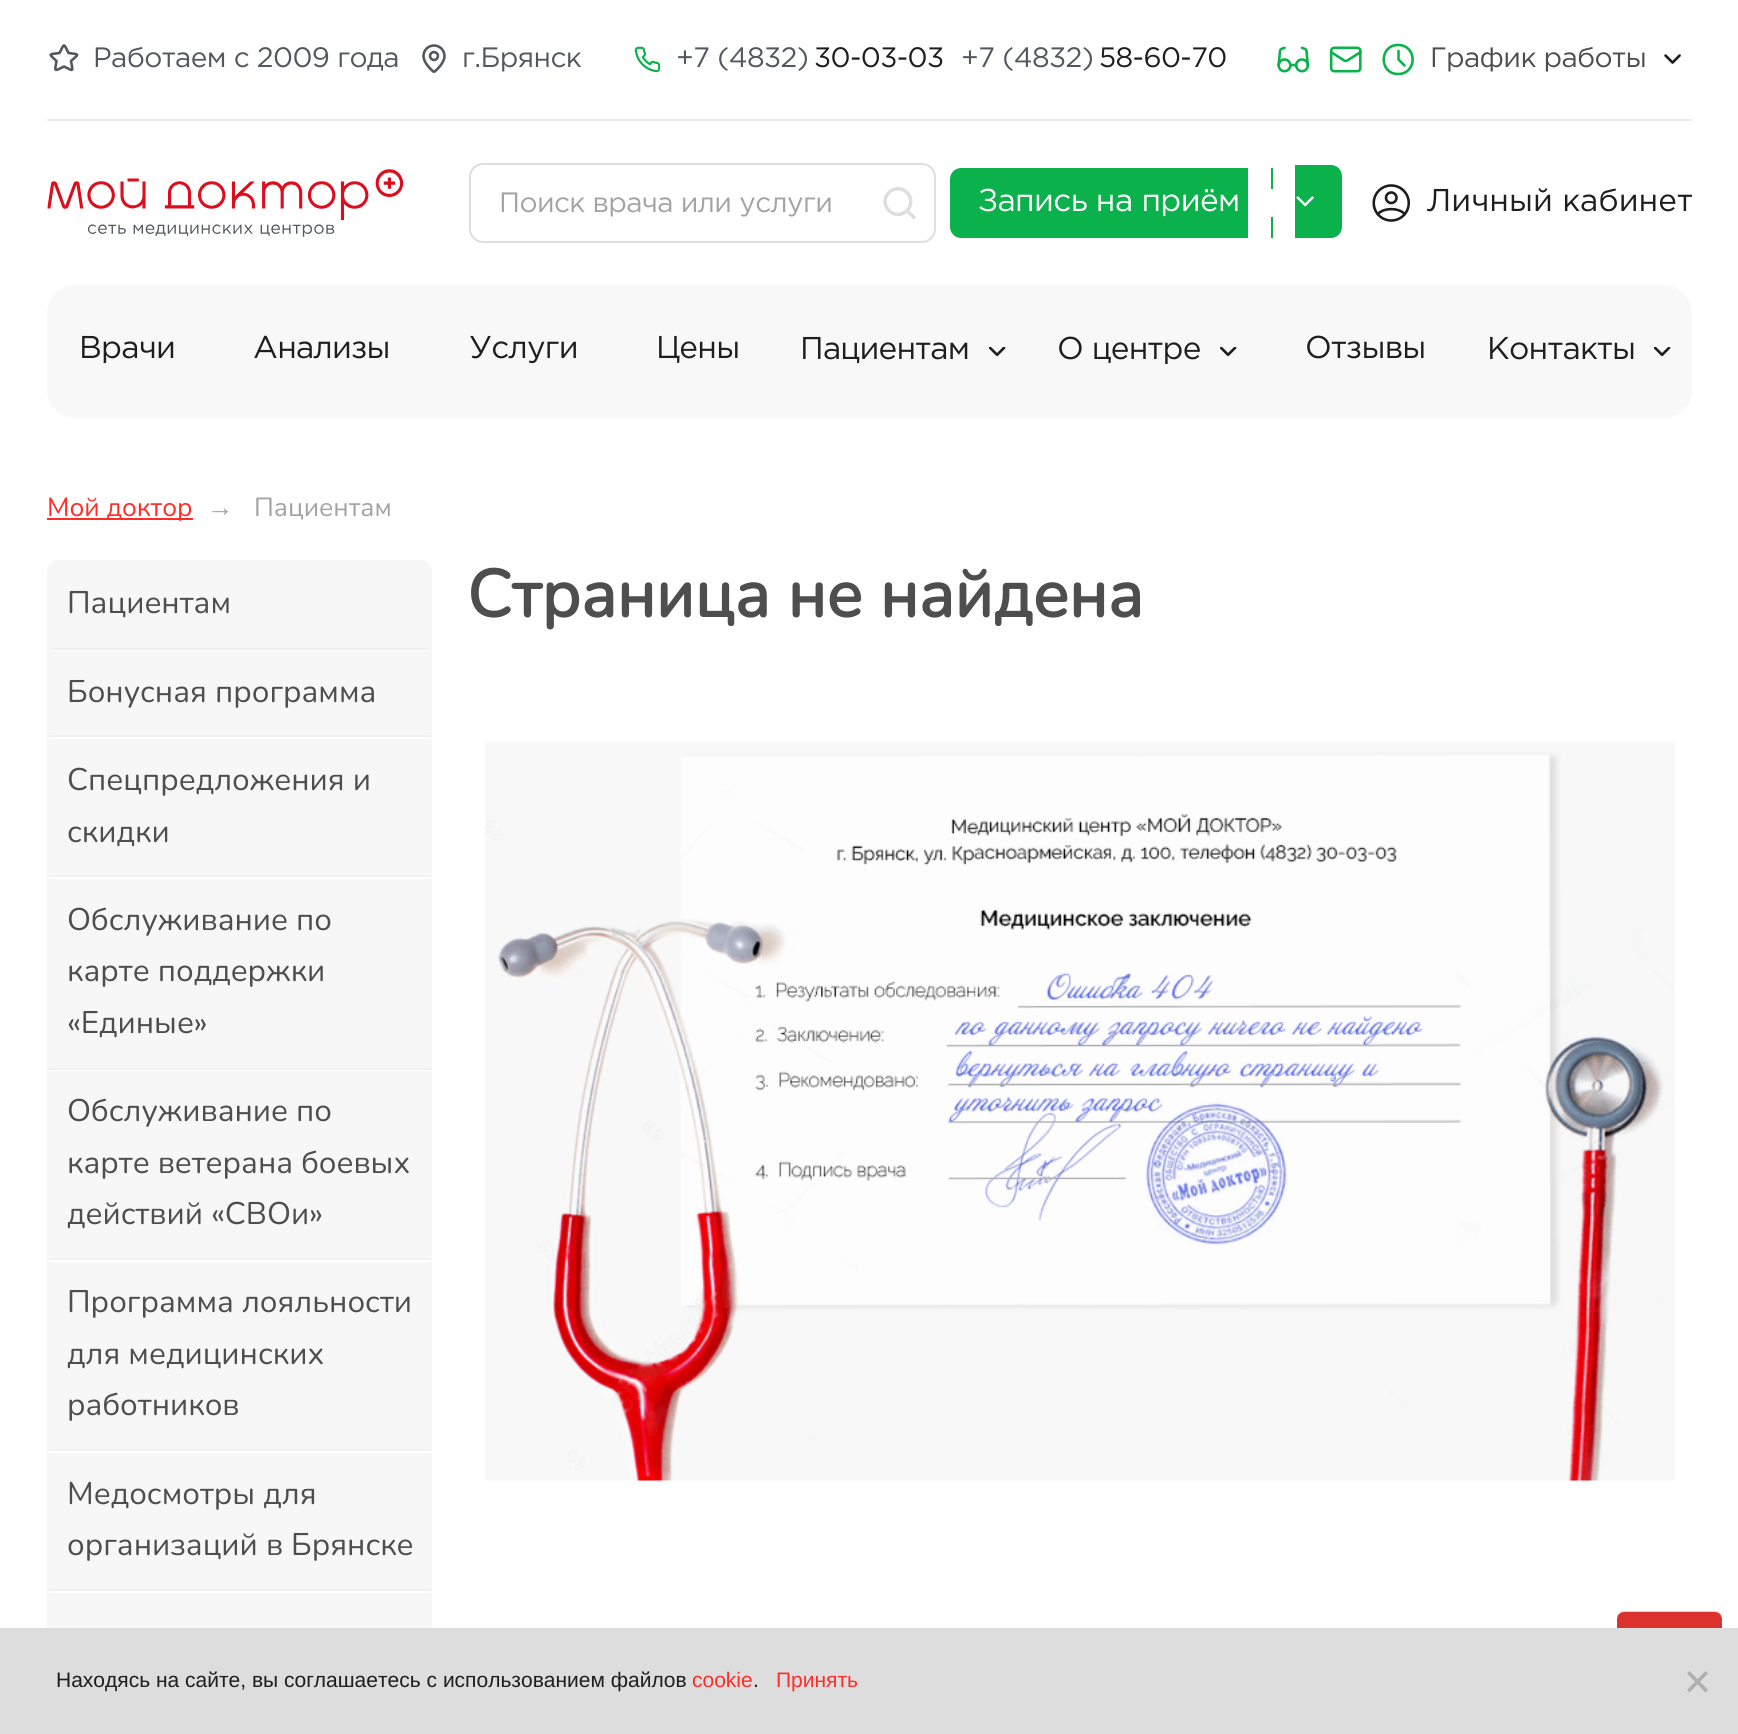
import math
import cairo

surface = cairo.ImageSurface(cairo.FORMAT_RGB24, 1738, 1734)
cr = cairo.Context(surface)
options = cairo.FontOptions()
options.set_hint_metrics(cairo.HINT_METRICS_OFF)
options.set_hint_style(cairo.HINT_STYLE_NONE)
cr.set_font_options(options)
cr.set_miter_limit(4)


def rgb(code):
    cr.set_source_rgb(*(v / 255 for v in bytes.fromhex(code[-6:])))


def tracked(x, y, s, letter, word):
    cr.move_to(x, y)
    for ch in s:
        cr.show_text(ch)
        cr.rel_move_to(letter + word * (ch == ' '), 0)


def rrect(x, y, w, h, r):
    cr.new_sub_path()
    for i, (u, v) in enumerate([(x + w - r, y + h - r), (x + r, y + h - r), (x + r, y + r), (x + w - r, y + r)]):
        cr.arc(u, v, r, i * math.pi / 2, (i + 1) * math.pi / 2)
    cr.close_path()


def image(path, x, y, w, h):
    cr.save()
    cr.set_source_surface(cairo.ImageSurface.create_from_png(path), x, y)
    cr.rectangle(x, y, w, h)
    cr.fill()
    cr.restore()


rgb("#ffffff")
cr.paint()
rgb("#eaeaea")
cr.rectangle(47, 119, 1645, 2)
cr.fill()
cr.new_path()
cr.move_to(59.5, 53)
cr.curve_to(64.5, 43, 63.5, 43, 68.5, 53)
cr.curve_to(79.5, 54.5, 79.5, 53.5, 71, 61)
cr.curve_to(73, 72, 74, 71.5, 64, 66.5)
cr.curve_to(54, 71.5, 54.5, 72, 56.5, 61)
cr.curve_to(48.5, 53.5, 48, 54.5, 59.5, 53)
cr.close_path()
rgb("#53575e")
cr.set_line_width(2.6)
cr.set_line_cap(cairo.LINE_CAP_ROUND)
cr.set_line_join(cairo.LINE_JOIN_ROUND)
cr.stroke()
image("img/1.png", 422, 44, 24, 29)
image("img/2.png", 634, 46, 27, 27)
image("img/3.png", 1277, 46, 33, 27)
image("img/4.png", 1329, 46, 33, 27)
cr.new_path()
cr.move_to(1398, 74)
cr.curve_to(1417.5, 74, 1417.5, 45, 1398, 45)
cr.curve_to(1379, 45, 1379, 74, 1398, 74)
cr.close_path()
rgb("#0bb14b")
cr.set_line_cap(cairo.LINE_CAP_BUTT)
cr.stroke()
cr.new_path()
cr.move_to(1398.5, 51)
cr.line_to(1398.5, 59.5)
cr.line_to(1404.5, 65.5)
cr.set_line_cap(cairo.LINE_CAP_ROUND)
cr.stroke()
image("img/5.png", 1664, 54, 17, 10)
image("img/6.png", 47, 169, 357, 68)
rrect(470, 164, 465, 78, 13)
rgb("#dedede")
cr.set_line_width(2)
cr.set_line_cap(cairo.LINE_CAP_BUTT)
cr.set_line_join(cairo.LINE_JOIN_MITER)
cr.stroke()
cr.new_path()
cr.move_to(914, 217.5)
cr.line_to(907, 210.5)
cr.move_to(907, 210.5)
cr.curve_to(916, 201.5, 907.5, 186.5, 895.5, 189)
cr.curve_to(893, 189.5, 890.5, 190.5, 889, 192.5)
cr.curve_to(877, 204.5, 895, 222.5, 907, 210.5)
cr.close_path()
cr.set_line_width(3.5)
cr.set_line_cap(cairo.LINE_CAP_ROUND)
cr.set_line_join(cairo.LINE_JOIN_ROUND)
cr.stroke()
rgb("#0bb14b")
cr.new_path()
cr.move_to(961, 168)
cr.line_to(1248, 168)
cr.line_to(1248, 238)
cr.line_to(961, 238)
cr.curve_to(955, 238, 950, 233, 950, 227)
cr.line_to(950, 179)
cr.curve_to(950, 173, 955, 168, 961, 168)
cr.close_path()
cr.fill()
cr.rectangle(1271, 168, 2, 70)
cr.fill()
cr.new_path()
cr.move_to(1295, 165)
cr.line_to(1331, 165)
cr.curve_to(1337, 165, 1342, 170, 1342, 176)
cr.line_to(1342, 227)
cr.curve_to(1342, 233, 1337, 238, 1331, 238)
cr.line_to(1295, 238)
cr.close_path()
cr.fill()
rgb("#ffffff")
cr.rectangle(1271, 189, 2, 28)
cr.fill()
image("img/7.png", 1296, 196, 18, 11)
image("img/8.png", 1372, 184, 39, 38)
rgb("#f8f8f8")
rrect(47, 285, 1645, 133, 28)
cr.fill()
image("img/9.png", 989, 347, 17, 10)
image("img/9.png", 1220, 347, 17, 10)
image("img/9.png", 1654, 347, 17, 10)
rgb("#fe2d28")
cr.rectangle(47, 518, 146, 2)
cr.fill()
rrect(48, 561, 383, 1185, 10)
rgb("#f7f7f7")
cr.set_line_width(2)
cr.set_line_cap(cairo.LINE_CAP_BUTT)
cr.set_line_join(cairo.LINE_JOIN_MITER)
cr.stroke()
cr.new_path()
cr.move_to(58, 562)
cr.line_to(422, 562)
cr.curve_to(427, 562, 431, 566, 431, 571)
cr.line_to(431, 648)
cr.line_to(49, 648)
cr.line_to(49, 571)
cr.curve_to(49, 566, 53, 562, 58, 562)
cr.close_path()
cr.fill()
for x, y, w, h, color in [
    (49, 651, 381, 84, "#f7f7f7"),
    (430, 650, 1, 1, "#ffffff"),
    (49, 648, 382, 2, "#f0f0f0"),
    (49, 739, 381, 136, "#f7f7f7"),
    (430, 737, 1, 2, "#ffffff"),
    (49, 735, 382, 2, "#f0f0f0"),
    (49, 879, 381, 189, "#f7f7f7"),
    (430, 877, 1, 2, "#ffffff"),
    (49, 875, 382, 2, "#f0f0f0"),
    (49, 1071, 381, 187, "#f7f7f7"),
    (430, 1070, 1, 1, "#ffffff"),
    (49, 1068, 382, 2, "#f0f0f0"),
    (49, 1262, 381, 187, "#f7f7f7"),
    (430, 1260, 1, 2, "#ffffff"),
    (49, 1258, 382, 2, "#f0f0f0"),
    (49, 1453, 381, 136, "#f7f7f7"),
    (430, 1451, 1, 2, "#ffffff"),
    (49, 1449, 382, 2, "#f0f0f0"),
    (49, 1593, 381, 35, "#f7f7f7"),
    (430, 1591, 1, 2, "#ffffff"),
    (49, 1589, 382, 2, "#f0f0f0"),
]:
    rgb(color)
    cr.rectangle(x, y, w, h)
    cr.fill()
image("img/10.png", 485, 742, 1190, 739)
image("img/11.png", 1617, 1611, 105, 17)
rgb("#dddddd")
cr.rectangle(0, 1628, 1738, 106)
cr.fill()
rgb("#afafaf")
cr.new_path()
cr.move_to(1705.5, 1671)
cr.line_to(1708, 1673.5)
cr.line_to(1689.5, 1692.5)
cr.line_to(1687, 1690)
cr.close_path()
cr.fill()
cr.new_path()
cr.move_to(1687, 1673.5)
cr.line_to(1689.5, 1671)
cr.line_to(1708, 1690)
cr.line_to(1705.5, 1692.5)
cr.close_path()
cr.fill()
cr.select_font_face("Gotham")
cr.set_font_size(28)
rgb("#53575e")
for x, y, s in [
    (93, 67, "Работаем с 2009 года"),
    (462, 67, "г.Брянск"),
    (676, 67, "+7 (4832)"),
]:
    tracked(x, y, s, -0.6, 0)
rgb("#1e1e1e")
tracked(814, 67, "30-03-03", -0.6, 0)
rgb("#53575e")
tracked(961, 67, "+7 (4832)", -0.6, 0)
rgb("#1e1e1e")
tracked(1099, 67, "58-60-70", -0.6, 0)
rgb("#4e4e4e")
tracked(1430, 67, "График работы", -0.6, 0)
rgb("#a3a3a3")
tracked(499, 212, "Поиск врача или услуги", -0.6, 0)
cr.set_font_size(31.5)
rgb("#ffffff")
tracked(978, 211, "Запись на приём", -0.6, 0)
rgb("#1e1e1e")
cr.move_to(1427, 211)
cr.show_text("Личный кабинет")
for x, y, s in [
    (79, 358, "Врачи"),
    (253, 358, "Анализы"),
    (469, 358, "Услуги"),
    (656, 358, "Цены"),
    (800, 359, "Пациентам"),
    (1057, 359, "О центре"),
    (1305, 358, "Отзывы"),
    (1487, 359, "Контакты"),
]:
    tracked(x, y, s, -0.75, 0)
cr.select_font_face("Nunito ExtraLight")
cr.set_font_size(26.25)
rgb("#fe2d28")
cr.move_to(47, 516)
cr.show_text("Мой доктор")
cr.select_font_face("Liberation Sans")
rgb("#a3a3a3")
cr.move_to(207, 516)
cr.show_text("→")
cr.select_font_face("Nunito ExtraLight")
cr.move_to(254, 516)
cr.show_text("Пациентам")
cr.set_font_size(31.25)
rgb("#4e4e4e")
for x, y, s in [
    (67, 613, "Пациентам"),
    (67, 702, "Бонусная программа"),
    (67, 790, "Спецпредложения и"),
    (67, 842, "скидки"),
    (67, 930, "Обслуживание по"),
    (67, 981, "карте поддержки"),
    (67, 1033, "«Единые»"),
    (67, 1121, "Обслуживание по"),
    (67, 1173, "карте ветерана боевых"),
    (67, 1224, "действий «СВОи»"),
    (67, 1312, "Программа лояльности"),
    (67, 1364, "для медицинских"),
    (67, 1415, "работников"),
    (67, 1504, "Медосмотры для"),
    (67, 1555, "организаций в Брянске"),
]:
    cr.move_to(x, y)
    cr.show_text(s)
cr.select_font_face("Nunito", cairo.FONT_SLANT_NORMAL, cairo.FONT_WEIGHT_BOLD)
cr.set_font_size(66.5)
cr.move_to(467, 617)
cr.show_text("Страница не найдена")
cr.select_font_face("Liberation Sans")
cr.set_font_size(21)
rgb("#1e1e1e")
cr.move_to(56, 1687)
cr.show_text("Находясь на сайте, вы соглашаетесь с использованием файлов")
rgb("#fe2d28")
cr.move_to(692, 1687)
cr.show_text("cookie")
rgb("#1e1e1e")
cr.move_to(753, 1687)
cr.show_text(".")
rgb("#fe2d28")
cr.move_to(776, 1687)
cr.show_text("Принять")
surface.write_to_png("page.png")
